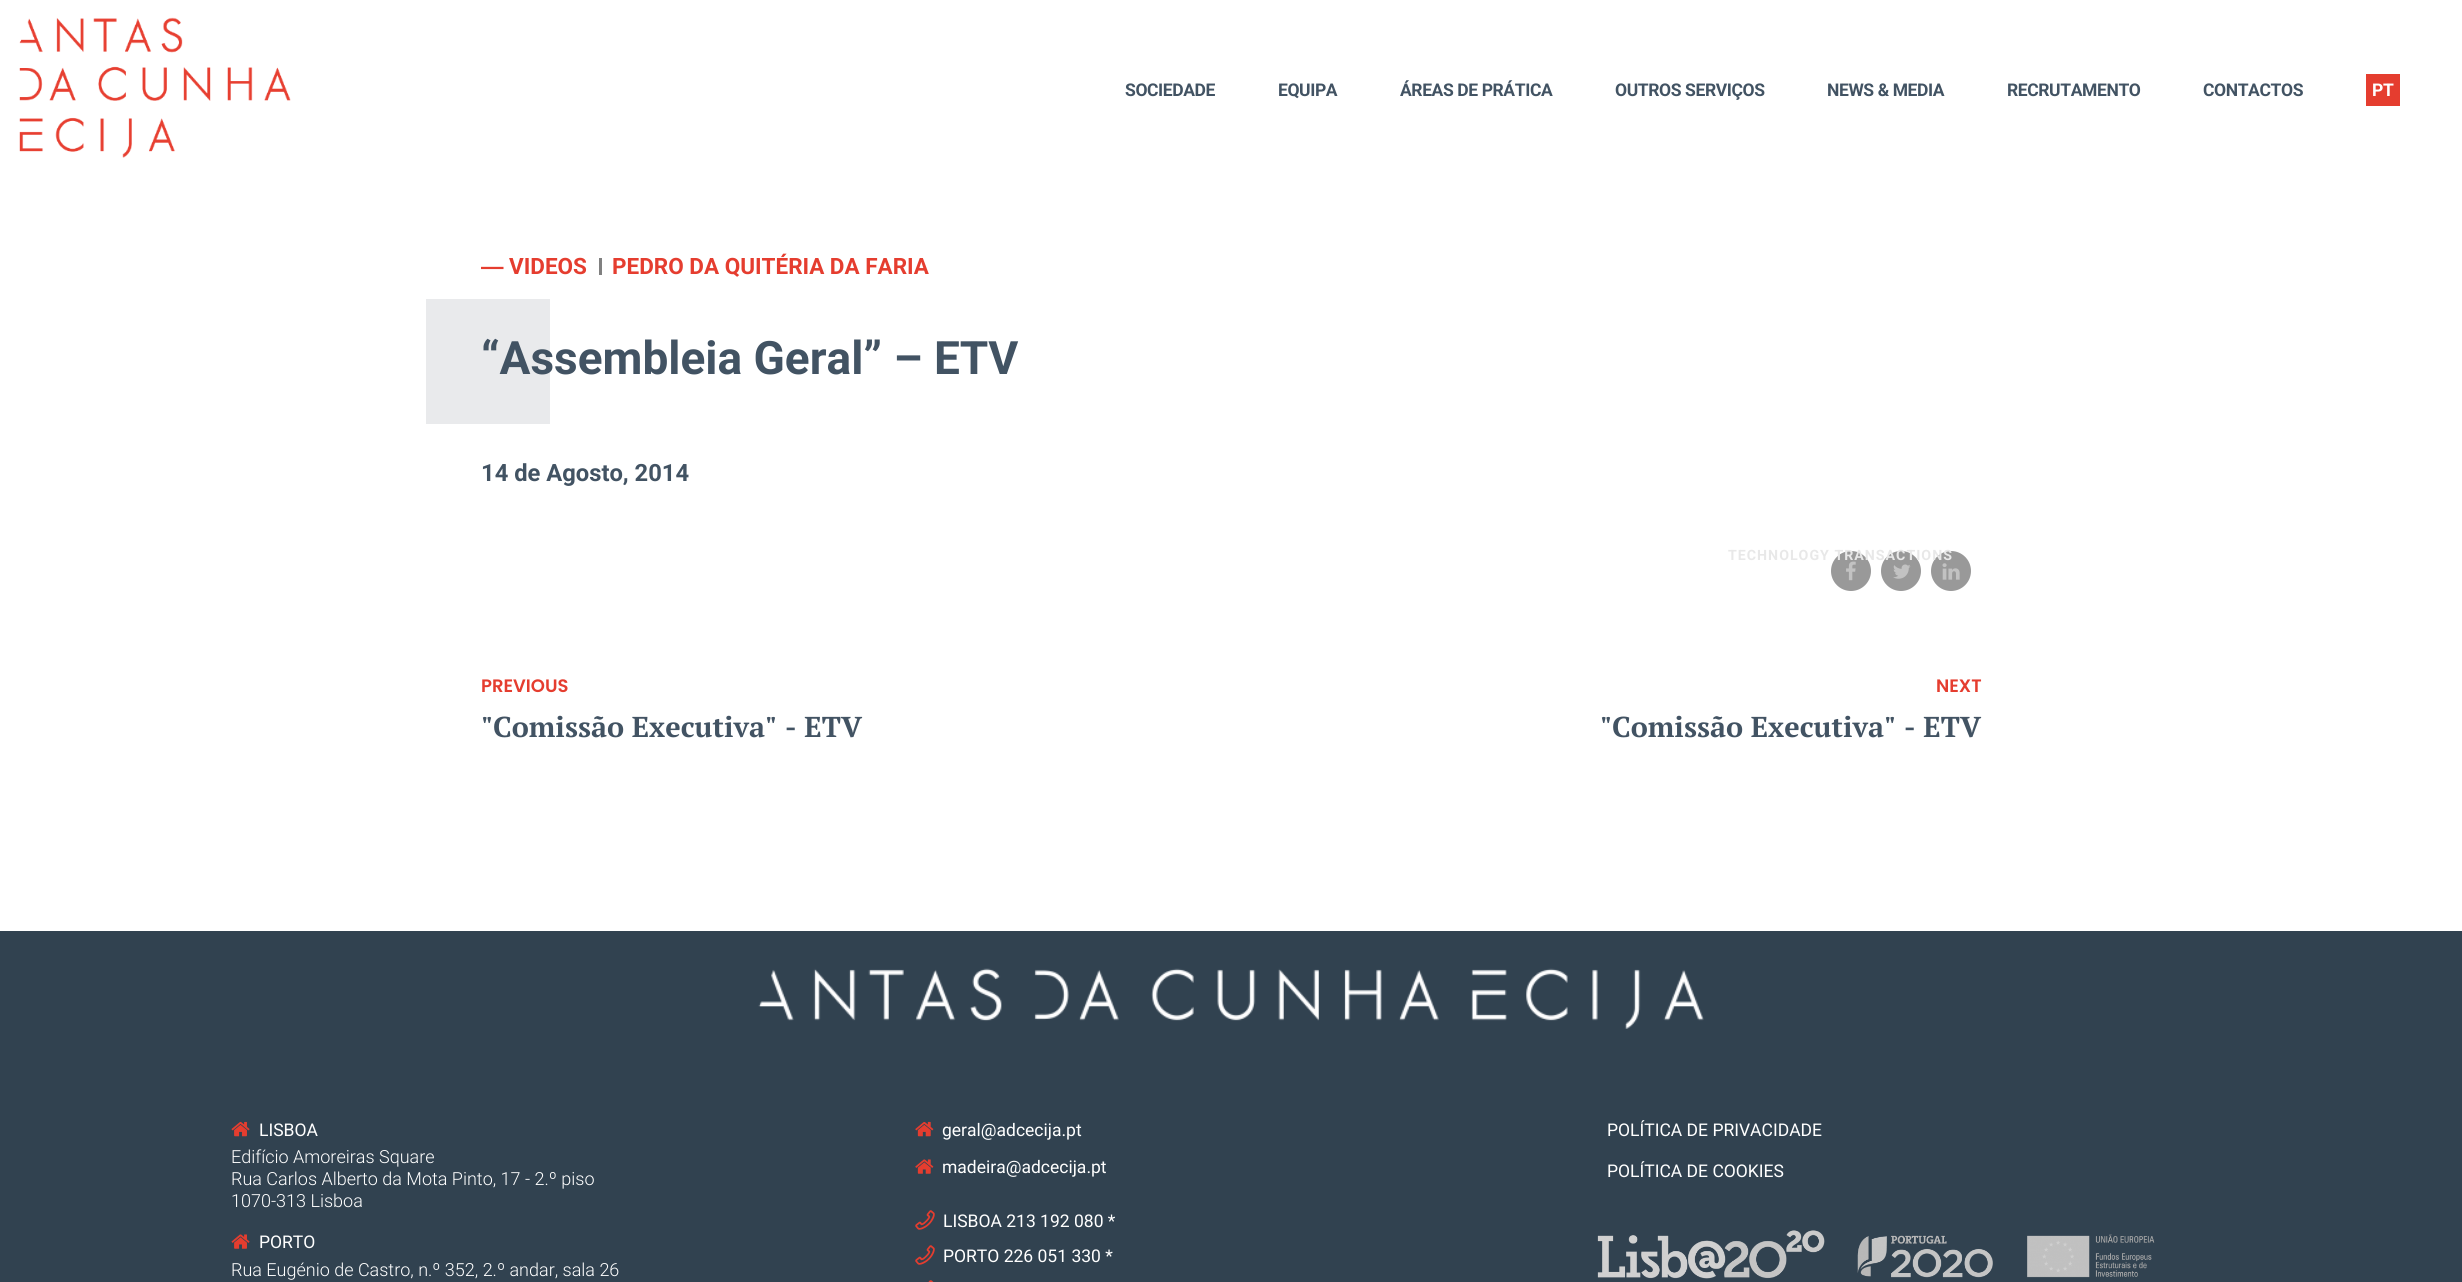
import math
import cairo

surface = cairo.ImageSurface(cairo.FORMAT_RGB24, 2462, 1282)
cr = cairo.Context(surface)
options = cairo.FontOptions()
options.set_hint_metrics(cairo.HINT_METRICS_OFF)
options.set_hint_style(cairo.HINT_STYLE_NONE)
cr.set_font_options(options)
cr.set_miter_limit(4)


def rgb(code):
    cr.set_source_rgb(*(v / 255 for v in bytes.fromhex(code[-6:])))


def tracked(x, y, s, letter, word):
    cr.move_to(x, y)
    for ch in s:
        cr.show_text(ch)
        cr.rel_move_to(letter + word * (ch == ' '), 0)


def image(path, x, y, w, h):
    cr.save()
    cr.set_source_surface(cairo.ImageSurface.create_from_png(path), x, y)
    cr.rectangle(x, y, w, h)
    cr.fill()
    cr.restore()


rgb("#ffffff")
cr.paint()
image("img/1.png", 19, 17, 272, 141)
for x, y, w, h, color in [
    (2366, 74, 34, 32, "#e53d2f"),
    (599, 258, 3, 17, "#808080"),
    (426, 299, 124, 125, "#e9eaec"),
]:
    rgb(color)
    cr.rectangle(x, y, w, h)
    cr.fill()
rgb("#999999")
cr.arc(1851, 571, 20, 0, 2 * math.pi)
cr.fill()
image("img/2.png", 1846, 561, 10, 20)
cr.arc(1901, 571, 20, 0, 2 * math.pi)
cr.fill()
image("img/3.png", 1893, 564, 18, 15)
cr.arc(1951, 571, 20, 0, 2 * math.pi)
cr.fill()
image("img/4.png", 1942, 563, 18, 17)
rgb("#314250")
cr.rectangle(0, 931, 2462, 351)
cr.fill()
image("img/5.png", 758, 968, 946, 61)
image("img/6.png", 231, 1121, 19, 16)
image("img/7.png", 231, 1234, 19, 15)
image("img/8.png", 915, 1121, 19, 16)
image("img/9.png", 915, 1159, 19, 15)
image("img/10.png", 915, 1210, 20, 20)
image("img/10.png", 915, 1245, 20, 20)
image("img/11.png", 928, 1280, 6, 2)
image("img/12.png", 1597, 1230, 558, 49)
cr.select_font_face("Roboto", cairo.FONT_SLANT_NORMAL, cairo.FONT_WEIGHT_BOLD)
cr.set_font_size(17.5)
rgb("#425363")
for x, y, s in [
    (1125, 96, "SOCIEDADE"),
    (1278, 96, "EQUIPA"),
    (1400, 96, "ÁREAS DE PRÁTICA"),
]:
    tracked(x, y, s, -0.4, 0)
cr.set_font_size(14.2)
rgb("#e8e8e8")
tracked(1728, 560, "TECHNOLOGY TRANSACTIONS", 1, 0)
cr.set_font_size(17.5)
rgb("#425363")
for x, y, s in [
    (1615, 96, "OUTROS SERVIÇOS"),
    (1827, 96, "NEWS & MEDIA"),
    (2007, 96, "RECRUTAMENTO"),
    (2203, 96, "CONTACTOS"),
]:
    tracked(x, y, s, -0.4, 0)
rgb("#ffffff")
tracked(2372, 96, "PT", -0.4, 0)
cr.select_font_face("Liberation Sans", cairo.FONT_SLANT_NORMAL, cairo.FONT_WEIGHT_BOLD)
cr.set_font_size(22.5)
rgb("#e53d2f")
cr.move_to(481, 274)
cr.show_text("―")
cr.select_font_face("Roboto", cairo.FONT_SLANT_NORMAL, cairo.FONT_WEIGHT_BOLD)
cr.move_to(509, 274)
cr.show_text("VIDEOS")
cr.move_to(612, 274)
cr.show_text("PEDRO DA QUITÉRIA DA FARIA")
cr.set_font_size(46)
rgb("#425363")
cr.move_to(481, 374)
cr.show_text("“Assembleia Geral” – ETV")
cr.set_font_size(23.75)
cr.move_to(481, 481)
cr.show_text("14 de Agosto, 2014")
cr.select_font_face("Poppins SemiBold")
cr.set_font_size(18)
rgb("#e53d2f")
cr.move_to(481, 692)
cr.show_text("PREVIOUS")
cr.select_font_face("PT Serif", cairo.FONT_SLANT_NORMAL, cairo.FONT_WEIGHT_BOLD)
cr.set_font_size(28.75)
rgb("#425363")
cr.move_to(481, 737)
cr.show_text("\"Comissão Executiva\" - ETV")
cr.select_font_face("Poppins SemiBold")
cr.set_font_size(18)
rgb("#e53d2f")
cr.move_to(1936, 692)
cr.show_text("NEXT")
cr.select_font_face("PT Serif", cairo.FONT_SLANT_NORMAL, cairo.FONT_WEIGHT_BOLD)
cr.set_font_size(28.75)
rgb("#425363")
cr.move_to(1600, 737)
cr.show_text("\"Comissão Executiva\" - ETV")
cr.select_font_face("Roboto")
cr.set_font_size(17.5)
rgb("#ffffff")
cr.move_to(259, 1136)
cr.show_text("LISBOA")
cr.select_font_face("Roboto Light")
cr.set_font_size(18)
for x, y, s in [
    (231, 1163, "Edifício Amoreiras Square"),
    (231, 1185, "Rua Carlos Alberto da Mota Pinto, 17 - 2.º piso"),
    (231, 1207, "1070-313 Lisboa"),
]:
    cr.move_to(x, y)
    cr.show_text(s)
cr.select_font_face("Roboto")
cr.set_font_size(17.5)
cr.move_to(259, 1248)
cr.show_text("PORTO")
cr.select_font_face("Roboto Light")
cr.set_font_size(18)
cr.move_to(231, 1276)
cr.show_text("Rua Eugénio de Castro, n.º 352, 2.º andar, sala 26")
cr.select_font_face("Roboto")
cr.set_font_size(17.5)
for x, y, s in [
    (942, 1136, "geral@adcecija.pt"),
    (942, 1173, "madeira@adcecija.pt"),
    (943, 1227, "LISBOA 213 192 080 *"),
    (943, 1262, "PORTO 226 051 330 *"),
    (1607, 1136, "POLÍTICA DE PRIVACIDADE"),
    (1607, 1177, "POLÍTICA DE COOKIES"),
]:
    cr.move_to(x, y)
    cr.show_text(s)
surface.write_to_png("page.png")
